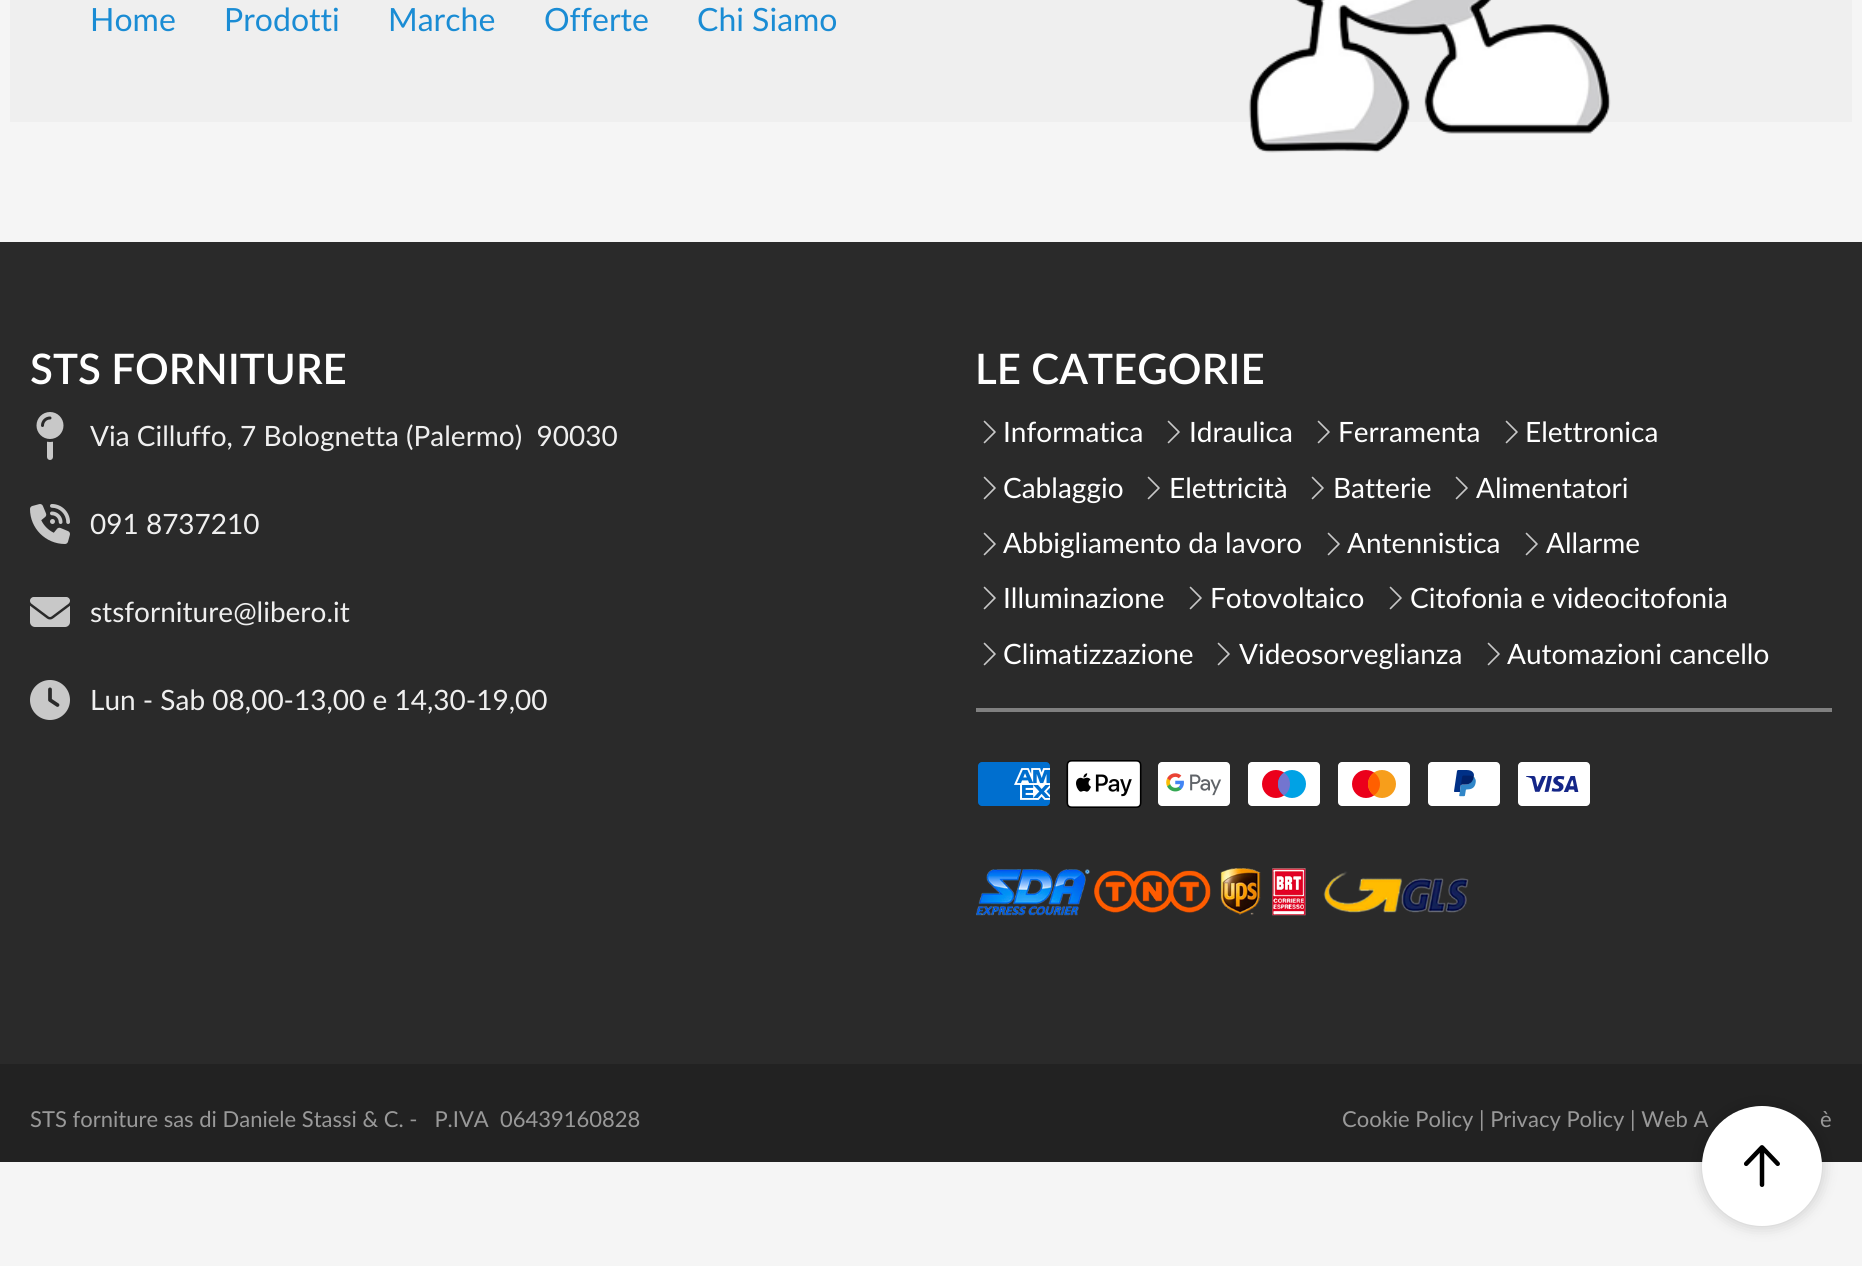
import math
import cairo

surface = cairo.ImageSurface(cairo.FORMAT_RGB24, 1862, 1266)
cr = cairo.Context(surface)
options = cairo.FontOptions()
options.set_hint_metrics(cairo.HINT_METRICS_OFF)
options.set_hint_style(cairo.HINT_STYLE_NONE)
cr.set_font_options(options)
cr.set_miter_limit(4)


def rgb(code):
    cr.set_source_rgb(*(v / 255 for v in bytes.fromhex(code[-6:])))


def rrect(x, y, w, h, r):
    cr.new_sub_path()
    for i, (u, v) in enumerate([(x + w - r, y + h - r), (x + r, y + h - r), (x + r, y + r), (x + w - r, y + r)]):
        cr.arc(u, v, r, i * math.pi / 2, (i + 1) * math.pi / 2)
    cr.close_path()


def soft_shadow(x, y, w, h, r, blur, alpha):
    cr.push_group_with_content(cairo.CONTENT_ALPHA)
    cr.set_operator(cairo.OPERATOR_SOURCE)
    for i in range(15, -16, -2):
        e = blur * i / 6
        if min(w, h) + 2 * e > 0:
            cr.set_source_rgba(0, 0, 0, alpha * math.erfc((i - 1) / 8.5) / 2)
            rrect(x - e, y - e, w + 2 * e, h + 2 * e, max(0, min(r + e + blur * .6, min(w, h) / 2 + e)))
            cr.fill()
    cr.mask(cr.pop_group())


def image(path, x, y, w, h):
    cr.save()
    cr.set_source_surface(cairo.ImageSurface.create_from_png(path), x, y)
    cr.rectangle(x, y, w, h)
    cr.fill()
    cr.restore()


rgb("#f5f5f5")
cr.paint()
rgb("#efefef")
cr.rectangle(10, 0, 1842, 122)
cr.fill()
image("img/1.png", 1248, 0, 363, 153)
rgb("#2a2a2a")
cr.rectangle(0, 242, 1862, 822)
cr.fill()
image("img/2.png", 36, 412, 28, 48)
image("img/3.png", 30, 504, 40, 40)
image("img/4.png", 30, 597, 40, 30)
image("img/5.png", 30, 680, 40, 40)
image("img/6.png", 983, 420, 13, 24)
image("img/6.png", 1167, 420, 13, 24)
image("img/6.png", 1317, 420, 13, 24)
image("img/6.png", 1505, 420, 13, 24)
image("img/6.png", 983, 476, 13, 24)
image("img/6.png", 1147, 476, 13, 24)
image("img/6.png", 1311, 476, 13, 24)
image("img/6.png", 1455, 476, 13, 24)
image("img/6.png", 983, 532, 13, 24)
image("img/6.png", 1327, 532, 13, 24)
image("img/6.png", 1525, 532, 13, 24)
image("img/6.png", 983, 586, 13, 24)
image("img/6.png", 1189, 586, 13, 24)
image("img/6.png", 1389, 586, 13, 24)
image("img/6.png", 983, 642, 13, 24)
image("img/6.png", 1217, 642, 13, 24)
image("img/6.png", 1487, 642, 13, 24)
rgb("#808080")
cr.rectangle(976, 708, 856, 4)
cr.fill()
image("img/7.png", 978, 762, 72, 44)
image("img/8.png", 1066, 760, 76, 48)
image("img/9.png", 1158, 762, 72, 44)
image("img/10.png", 1248, 762, 72, 44)
image("img/11.png", 1338, 762, 72, 44)
image("img/12.png", 1428, 762, 72, 44)
image("img/13.png", 1518, 762, 72, 44)
image("img/14.png", 976, 868, 493, 48)
rgb("#222222")
cr.rectangle(0, 1064, 1862, 98)
cr.fill()
rgb("#000000")
soft_shadow(1702, 1106, 120, 120, 60, 7.5, 0.2)
cr.select_font_face("Lato")
cr.set_font_size(32)
rgb("#1a8cd4")
for x, y, s in [
    (90, 31, "Home"),
    (224, 31, "Prodotti"),
    (388, 31, "Marche"),
    (544, 31, "Offerte"),
    (697, 31, "Chi Siamo"),
]:
    cr.move_to(x, y)
    cr.show_text(s)
cr.select_font_face("Lato SemiBold")
cr.set_font_size(42)
rgb("#ffffff")
cr.move_to(30, 384)
cr.show_text("STS FORNITURE")
cr.select_font_face("Lato")
cr.set_font_size(28)
rgb("#efefef")
for x, y, s in [
    (90, 446, "Via Cilluffo, 7 Bolognetta (Palermo)  90030"),
    (90, 534, "091 8737210"),
    (90, 622, "stsforniture@libero.it"),
    (90, 710, "Lun - Sab 08,00-13,00 e 14,30-19,00"),
]:
    cr.move_to(x, y)
    cr.show_text(s)
cr.select_font_face("Lato SemiBold")
cr.set_font_size(42)
rgb("#ffffff")
cr.move_to(975, 384)
cr.show_text("LE CATEGORIE")
cr.select_font_face("Lato")
cr.set_font_size(28)
for x, y, s in [
    (1003, 442, "Informatica"),
    (1189, 442, "Idraulica"),
    (1338, 442, "Ferramenta"),
    (1525, 442, "Elettronica"),
    (1003, 498, "Cablaggio"),
    (1169, 498, "Elettricità"),
    (1333, 498, "Batterie"),
    (1476, 498, "Alimentatori"),
    (1003, 553, "Abbigliamento da lavoro"),
    (1347, 553, "Antennistica"),
    (1546, 553, "Allarme"),
    (1003, 608, "Illuminazione"),
    (1210, 608, "Fotovoltaico"),
    (1410, 608, "Citofonia e videocitofonia"),
    (1003, 664, "Climatizzazione"),
    (1239, 664, "Videosorveglianza"),
    (1507, 664, "Automazioni cancello"),
]:
    cr.move_to(x, y)
    cr.show_text(s)
cr.set_font_size(22)
rgb("#999999")
for x, y, s in [
    (30, 1127, "STS forniture sas di Daniele Stassi & C. -   P.IVA  06439160828"),
    (1342, 1127, "Cookie Policy | Privacy Policy | Web A"),
    (1820, 1127, "è"),
]:
    cr.move_to(x, y)
    cr.show_text(s)
rgb("#ffffff")
cr.new_path()
cr.arc(1762, 1166, 60, 0, 2 * math.pi)
cr.fill()
image("img/15.png", 1744, 1145, 36, 42)
surface.write_to_png("page.png")
